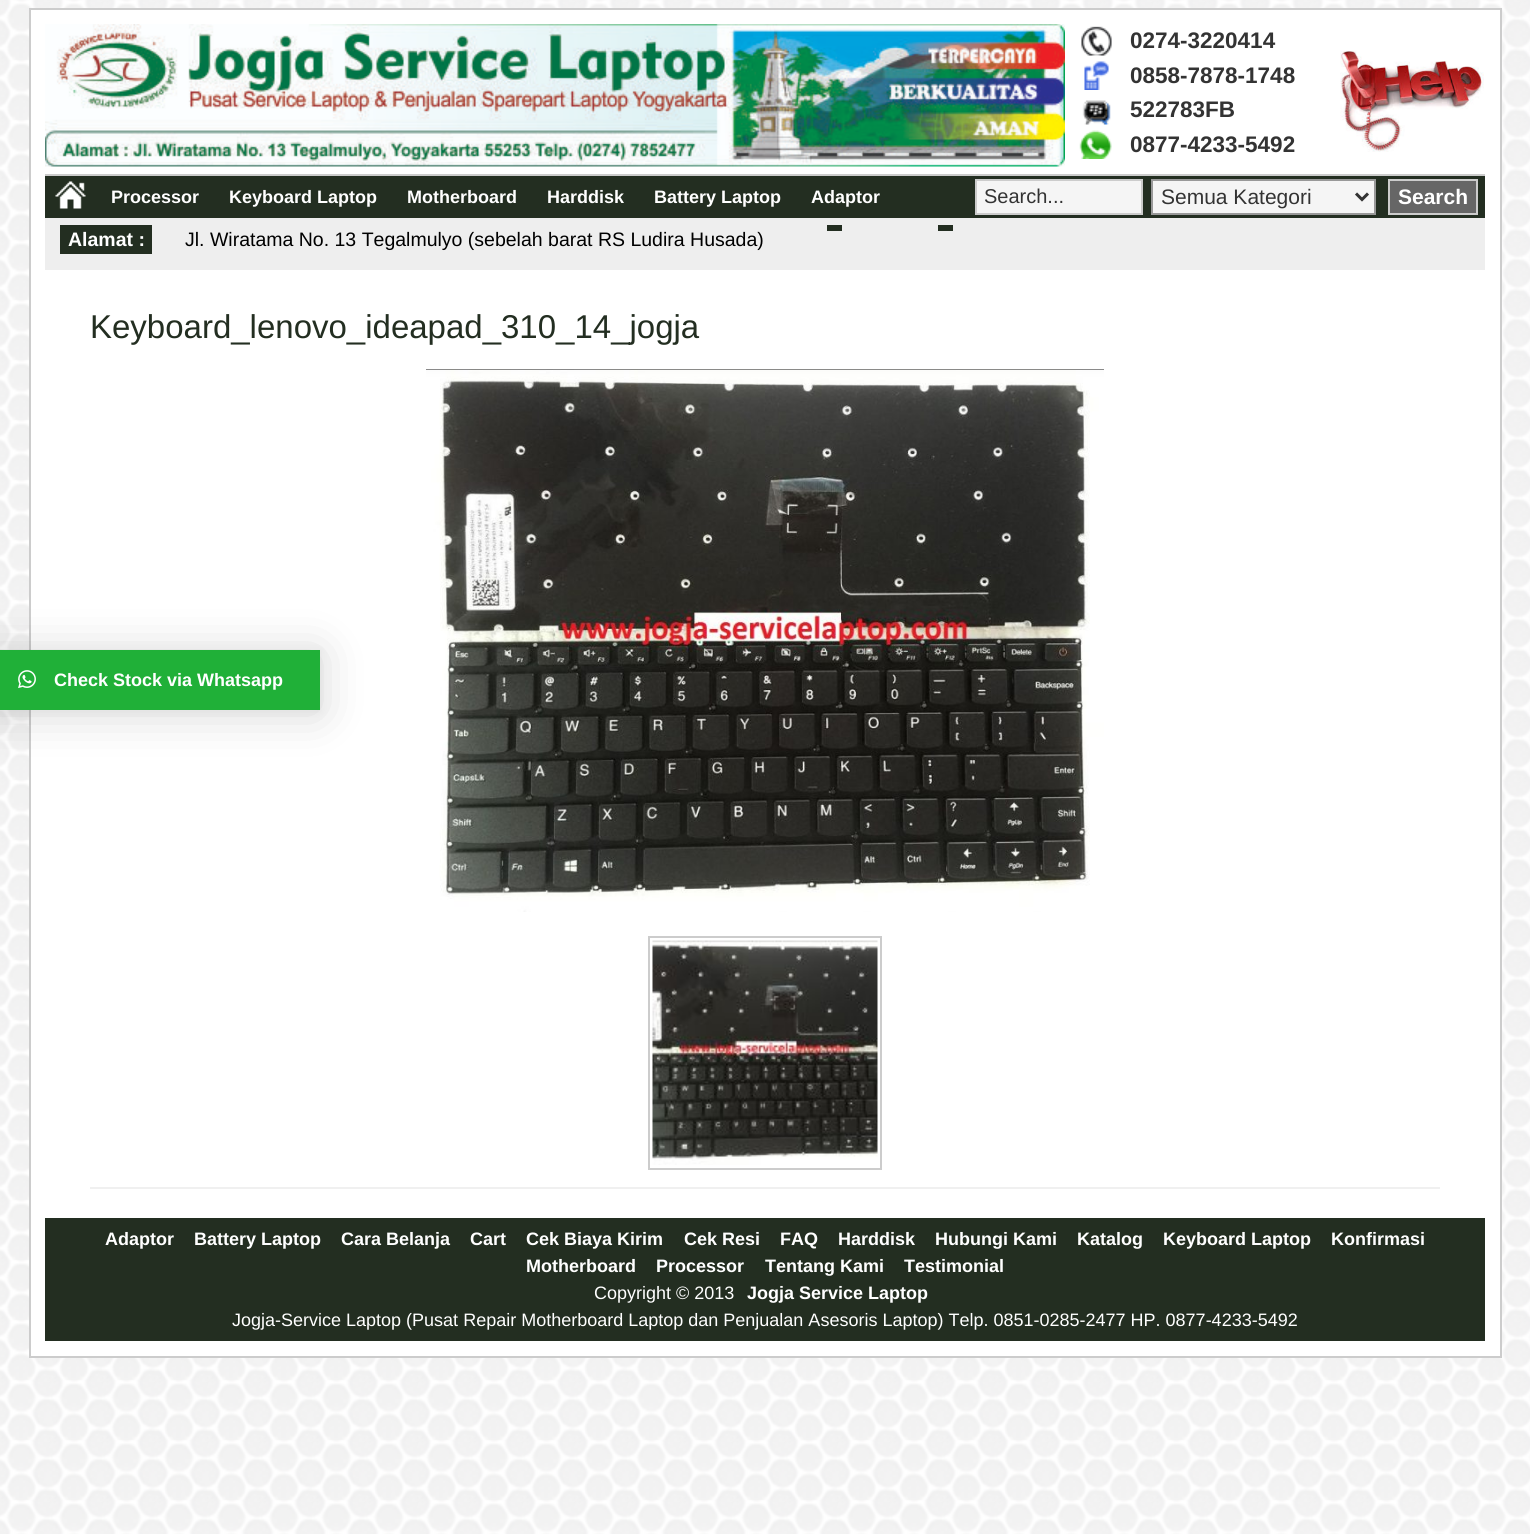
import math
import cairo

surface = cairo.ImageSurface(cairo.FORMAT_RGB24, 1530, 1534)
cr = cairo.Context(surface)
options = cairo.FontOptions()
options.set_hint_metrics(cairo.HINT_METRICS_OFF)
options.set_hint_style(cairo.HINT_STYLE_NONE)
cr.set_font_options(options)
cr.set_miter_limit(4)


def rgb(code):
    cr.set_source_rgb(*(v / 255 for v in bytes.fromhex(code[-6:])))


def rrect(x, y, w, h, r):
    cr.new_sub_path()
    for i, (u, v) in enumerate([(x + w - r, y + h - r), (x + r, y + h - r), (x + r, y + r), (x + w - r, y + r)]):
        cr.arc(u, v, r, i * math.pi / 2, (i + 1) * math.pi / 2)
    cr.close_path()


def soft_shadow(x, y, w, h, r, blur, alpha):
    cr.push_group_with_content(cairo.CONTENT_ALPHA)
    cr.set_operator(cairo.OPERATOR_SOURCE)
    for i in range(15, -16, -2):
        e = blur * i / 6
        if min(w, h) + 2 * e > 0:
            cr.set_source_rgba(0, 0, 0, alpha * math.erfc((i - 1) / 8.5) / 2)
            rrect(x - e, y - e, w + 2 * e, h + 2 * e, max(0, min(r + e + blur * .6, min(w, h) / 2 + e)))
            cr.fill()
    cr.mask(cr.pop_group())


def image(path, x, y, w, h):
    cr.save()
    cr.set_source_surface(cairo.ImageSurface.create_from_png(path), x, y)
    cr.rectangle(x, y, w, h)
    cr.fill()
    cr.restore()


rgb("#ffffff")
cr.paint()
image("img/1.png", 0, 0, 1530, 1534)
rgb("#ffffff")
cr.rectangle(30, 9, 1471, 1348)
cr.fill_preserve()
rgb("#cccccc")
cr.stroke()
image("img/2.png", 45, 24, 1020, 143)
image("img/3.png", 1081, 26, 31, 30)
image("img/4.png", 1084, 61, 25, 29)
image("img/5.png", 1082, 100, 29, 25)
image("img/6.png", 1079, 130, 33, 29)
image("img/7.png", 1340, 50, 144, 102)
rgb("#232e21")
cr.rectangle(45, 176, 1440, 42)
cr.fill()
rgb("#cccccc")
cr.rectangle(45, 174, 1440, 2)
cr.fill()
image("img/8.png", 55, 181, 31, 28)
rgb("#f5f5f5")
cr.rectangle(976, 180, 166, 34)
cr.fill_preserve()
rgb("#cccccc")
cr.stroke()
rgb("#f5f5f5")
cr.rectangle(1152, 180, 223, 34)
cr.fill_preserve()
rgb("#999999")
cr.stroke()
cr.new_path()
cr.move_to(1356, 193.5)
cr.line_to(1362, 199.5)
cr.line_to(1368, 193.5)
rgb("#333333")
cr.set_line_width(3)
cr.stroke()
rgb("#666666")
cr.rectangle(1389, 180, 88, 34)
cr.fill_preserve()
rgb("#cccccc")
cr.set_line_width(2)
cr.stroke()
for x, y, w, h, color in [
    (45, 218, 1440, 52, "#eeeeee"),
    (827, 225, 15, 6, "#232e21"),
    (938, 225, 15, 6, "#232e21"),
    (60, 225, 92, 29, "#232e21"),
    (90, 1187, 1350, 2, "#f0f0f0"),
]:
    rgb(color)
    cr.rectangle(x, y, w, h)
    cr.fill()
image("img/9.png", 426, 369, 678, 543)
cr.rectangle(649, 937, 232, 232)
rgb("#cccccc")
cr.stroke()
image("img/10.png", 652, 940, 226, 225)
rgb("#232e21")
cr.rectangle(45, 1218, 1440, 123)
cr.fill()
rgb("#000000")
soft_shadow(-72, 653, 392, 60, 0, 24, 0.16)
soft_shadow(-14, 651, 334, 60, 0, 4.5, 0.06)
rgb("#20b038")
cr.rectangle(0, 650, 320, 60)
cr.fill()
image("img/11.png", 18, 670, 18, 19)
cr.select_font_face("Liberation Sans", cairo.FONT_SLANT_NORMAL, cairo.FONT_WEIGHT_BOLD)
cr.set_font_size(22.5)
rgb("#333333")
for x, y, s in [
    (1130, 48, "0274-3220414"),
    (1130, 83, "0858-7878-1748"),
    (1130, 117, "522783FB"),
    (1130, 152, "0877-4233-5492"),
]:
    cr.move_to(x, y)
    cr.show_text(s)
cr.set_font_size(18)
rgb("#ffffff")
for x, y, s in [
    (111, 203, "Processor"),
    (229, 203, "Keyboard Laptop"),
    (407, 203, "Motherboard"),
    (547, 203, "Harddisk"),
    (654, 203, "Battery Laptop"),
    (811, 203, "Adaptor"),
]:
    cr.move_to(x, y)
    cr.show_text(s)
cr.select_font_face("Liberation Sans")
cr.set_font_size(20)
rgb("#333333")
cr.move_to(984, 203)
cr.show_text("Search...")
cr.set_font_size(21)
cr.move_to(1161, 204)
cr.show_text("Semua Kategori")
cr.select_font_face("Liberation Sans", cairo.FONT_SLANT_NORMAL, cairo.FONT_WEIGHT_BOLD)
rgb("#ffffff")
cr.move_to(1398, 204)
cr.show_text("Search")
cr.set_font_size(19.5)
cr.move_to(68, 246)
cr.show_text("Alamat :")
cr.select_font_face("Liberation Sans")
rgb("#000000")
cr.move_to(185, 246)
cr.show_text("Jl. Wiratama No. 13 Tegalmulyo (sebelah barat RS Ludira Husada)")
cr.set_font_size(33)
rgb("#232e21")
cr.move_to(90, 338)
cr.show_text("Keyboard_lenovo_ideapad_310_14_jogja")
cr.select_font_face("Liberation Sans", cairo.FONT_SLANT_NORMAL, cairo.FONT_WEIGHT_BOLD)
cr.set_font_size(18)
rgb("#ffffff")
for x, y, s in [
    (54, 686, "Check Stock via Whatsapp"),
    (105, 1245, "Adaptor"),
    (194, 1245, "Battery Laptop"),
    (341, 1245, "Cara Belanja"),
    (470, 1245, "Cart"),
    (526, 1245, "Cek Biaya Kirim"),
    (684, 1245, "Cek Resi"),
    (780, 1245, "FAQ"),
    (838, 1245, "Harddisk"),
    (935, 1245, "Hubungi Kami"),
    (1077, 1245, "Katalog"),
    (1163, 1245, "Keyboard Laptop"),
    (1331, 1245, "Konfirmasi"),
    (526, 1272, "Motherboard"),
    (656, 1272, "Processor"),
    (765, 1272, "Tentang Kami"),
    (904, 1272, "Testimonial"),
]:
    cr.move_to(x, y)
    cr.show_text(s)
cr.select_font_face("Liberation Sans")
cr.move_to(594, 1299)
cr.show_text("Copyright © 2013")
cr.select_font_face("Liberation Sans", cairo.FONT_SLANT_NORMAL, cairo.FONT_WEIGHT_BOLD)
cr.move_to(747, 1299)
cr.show_text("Jogja Service Laptop")
cr.select_font_face("Liberation Sans")
cr.move_to(232, 1326)
cr.show_text("Jogja-Service Laptop (Pusat Repair Motherboard Laptop dan Penjualan Asesoris Laptop) Telp. 0851-0285-2477 HP. 0877-4233-5492")
surface.write_to_png("page.png")
